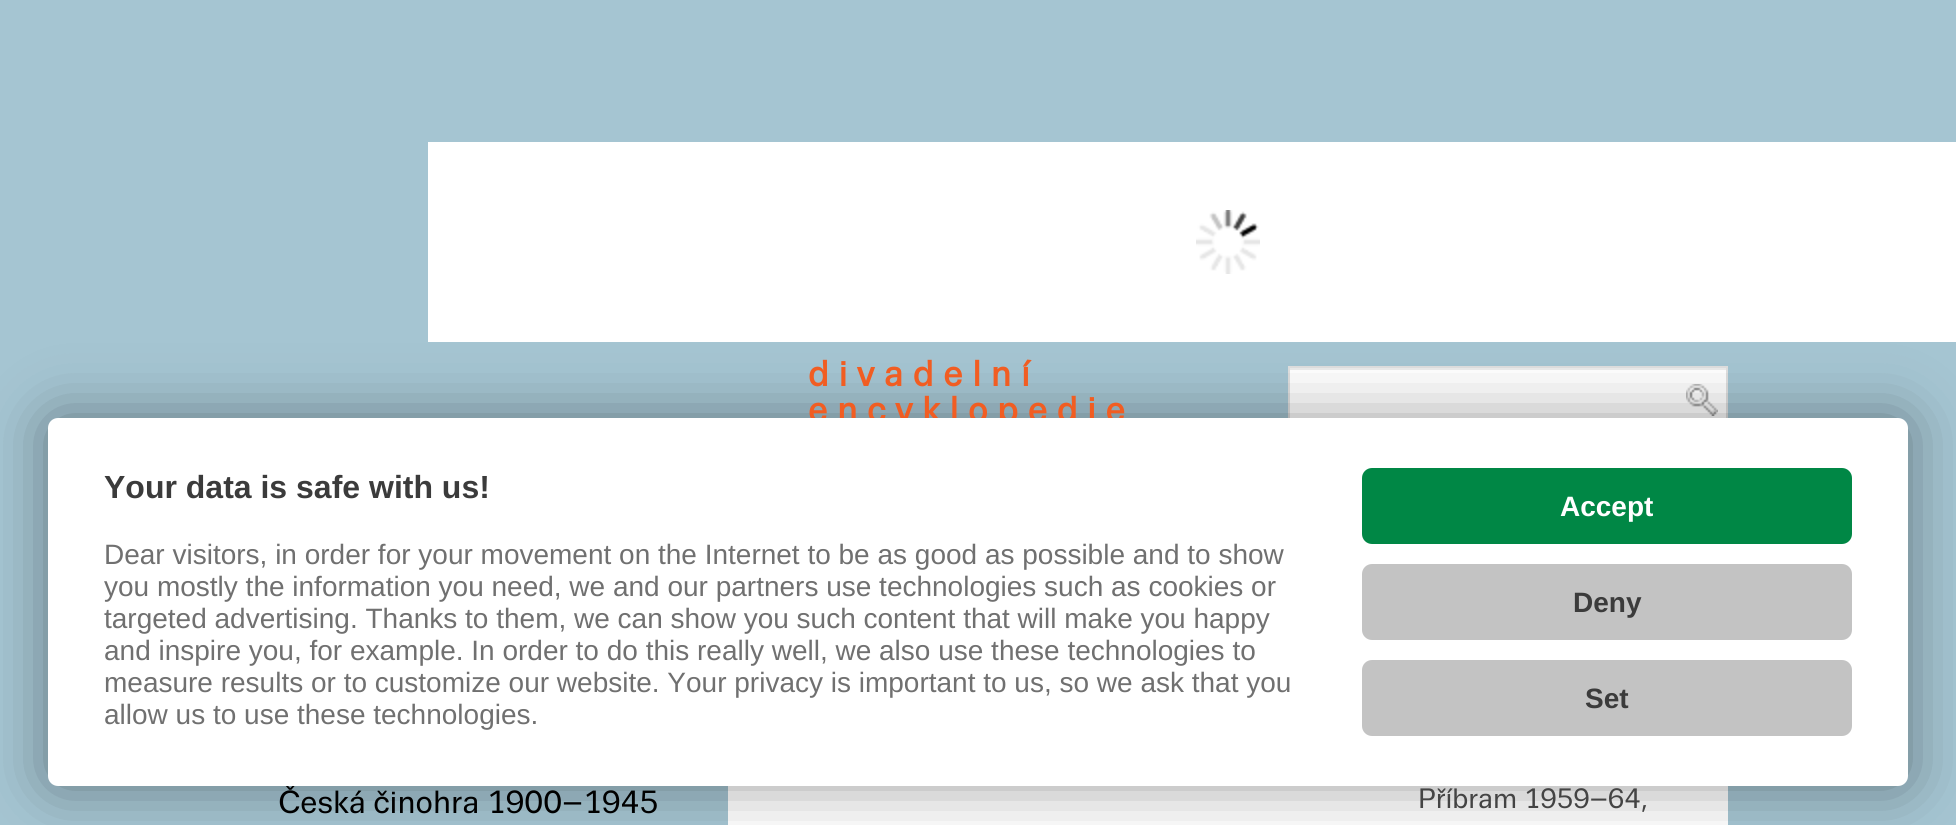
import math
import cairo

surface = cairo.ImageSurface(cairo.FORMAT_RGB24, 1956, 825)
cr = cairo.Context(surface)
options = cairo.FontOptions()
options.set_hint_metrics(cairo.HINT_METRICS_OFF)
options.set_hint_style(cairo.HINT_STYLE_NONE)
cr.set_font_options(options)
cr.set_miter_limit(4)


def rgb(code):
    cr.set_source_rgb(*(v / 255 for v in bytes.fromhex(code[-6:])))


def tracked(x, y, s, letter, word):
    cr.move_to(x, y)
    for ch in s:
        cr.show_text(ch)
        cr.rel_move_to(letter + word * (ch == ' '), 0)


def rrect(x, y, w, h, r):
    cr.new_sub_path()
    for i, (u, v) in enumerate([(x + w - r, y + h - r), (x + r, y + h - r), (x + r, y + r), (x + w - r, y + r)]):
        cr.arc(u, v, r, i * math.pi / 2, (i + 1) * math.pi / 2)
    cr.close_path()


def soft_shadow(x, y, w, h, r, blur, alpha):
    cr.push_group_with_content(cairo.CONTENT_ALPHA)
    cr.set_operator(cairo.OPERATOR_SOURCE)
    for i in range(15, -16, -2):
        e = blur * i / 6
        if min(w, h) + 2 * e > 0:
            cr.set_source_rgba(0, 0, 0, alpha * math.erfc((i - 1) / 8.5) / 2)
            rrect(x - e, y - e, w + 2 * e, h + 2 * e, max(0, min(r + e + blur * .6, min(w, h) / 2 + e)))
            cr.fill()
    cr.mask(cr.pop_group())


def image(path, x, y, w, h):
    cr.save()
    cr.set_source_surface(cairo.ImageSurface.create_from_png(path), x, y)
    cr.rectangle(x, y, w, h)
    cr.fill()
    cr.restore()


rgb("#a5c5d2")
cr.paint()
rgb("#ffffff")
cr.rectangle(428, 142, 1528, 200)
cr.fill()
image("img/1.png", 1196, 210, 64, 64)
cr.rectangle(1290, 370, 436, 48)
cr.fill()
image("img/2.png", 1686, 384, 32, 32)
rgb("#ececec")
cr.rectangle(1290, 368, 436, 2)
cr.fill()
cr.rectangle(1289, 367, 438, 66)
rgb("#dfdfdf")
cr.stroke()
rgb("#ffffff")
cr.rectangle(728, 786, 1000, 39)
cr.fill()
rgb("#000000")
soft_shadow(48, 418, 1860, 368, 10, 30, 0.4)
cr.select_font_face("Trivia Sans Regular")
cr.set_font_size(32)
rgb("#000000")
cr.move_to(278, 813)
cr.show_text("Česká činohra 1900–1945")
cr.select_font_face("Trivia Sans Regular", cairo.FONT_SLANT_NORMAL, cairo.FONT_WEIGHT_BOLD)
cr.set_font_size(36)
rgb("#f15d22")
tracked(808, 386, "divadelní", 9.75, 0)
tracked(808, 422, "encyklopedie", 9.75, 0)
cr.select_font_face("Trivia Sans Regular")
cr.set_font_size(28)
rgb("#444444")
cr.move_to(1418, 808)
cr.show_text("Příbram 1959–64,")
rgb("#ffffff")
rrect(48, 418, 1860, 368, 10)
cr.fill()
cr.select_font_face("Liberation Sans", cairo.FONT_SLANT_NORMAL, cairo.FONT_WEIGHT_BOLD)
cr.set_font_size(32)
rgb("#3b3b3b")
cr.move_to(104, 498)
cr.show_text("Your data is safe with us!")
cr.select_font_face("Liberation Sans")
cr.set_font_size(28)
rgb("#707070")
for x, y, s in [
    (104, 564, "Dear visitors, in order for your movement on the Internet to be as good as possible and to show"),
    (104, 596, "you mostly the information you need, we and our partners use technologies such as cookies or"),
    (104, 628, "targeted advertising. Thanks to them, we can show you such content that will make you happy"),
    (104, 660, "and inspire you, for example. In order to do this really well, we also use these technologies to"),
    (104, 692, "measure results or to customize our website. Your privacy is important to us, so we ask that you"),
    (104, 724, "allow us to use these technologies."),
]:
    cr.move_to(x, y)
    cr.show_text(s)
rgb("#008745")
rrect(1362, 468, 490, 76, 10)
cr.fill()
cr.select_font_face("Liberation Sans", cairo.FONT_SLANT_NORMAL, cairo.FONT_WEIGHT_BOLD)
rgb("#ffffff")
cr.move_to(1560, 516)
cr.show_text("Accept")
rgb("#c3c3c3")
rrect(1362, 564, 490, 76, 10)
cr.fill()
rgb("#3b3b3b")
cr.move_to(1573, 612)
cr.show_text("Deny")
rgb("#c3c3c3")
rrect(1362, 660, 490, 76, 10)
cr.fill()
rgb("#3b3b3b")
cr.move_to(1585, 708)
cr.show_text("Set")
surface.write_to_png("page.png")
